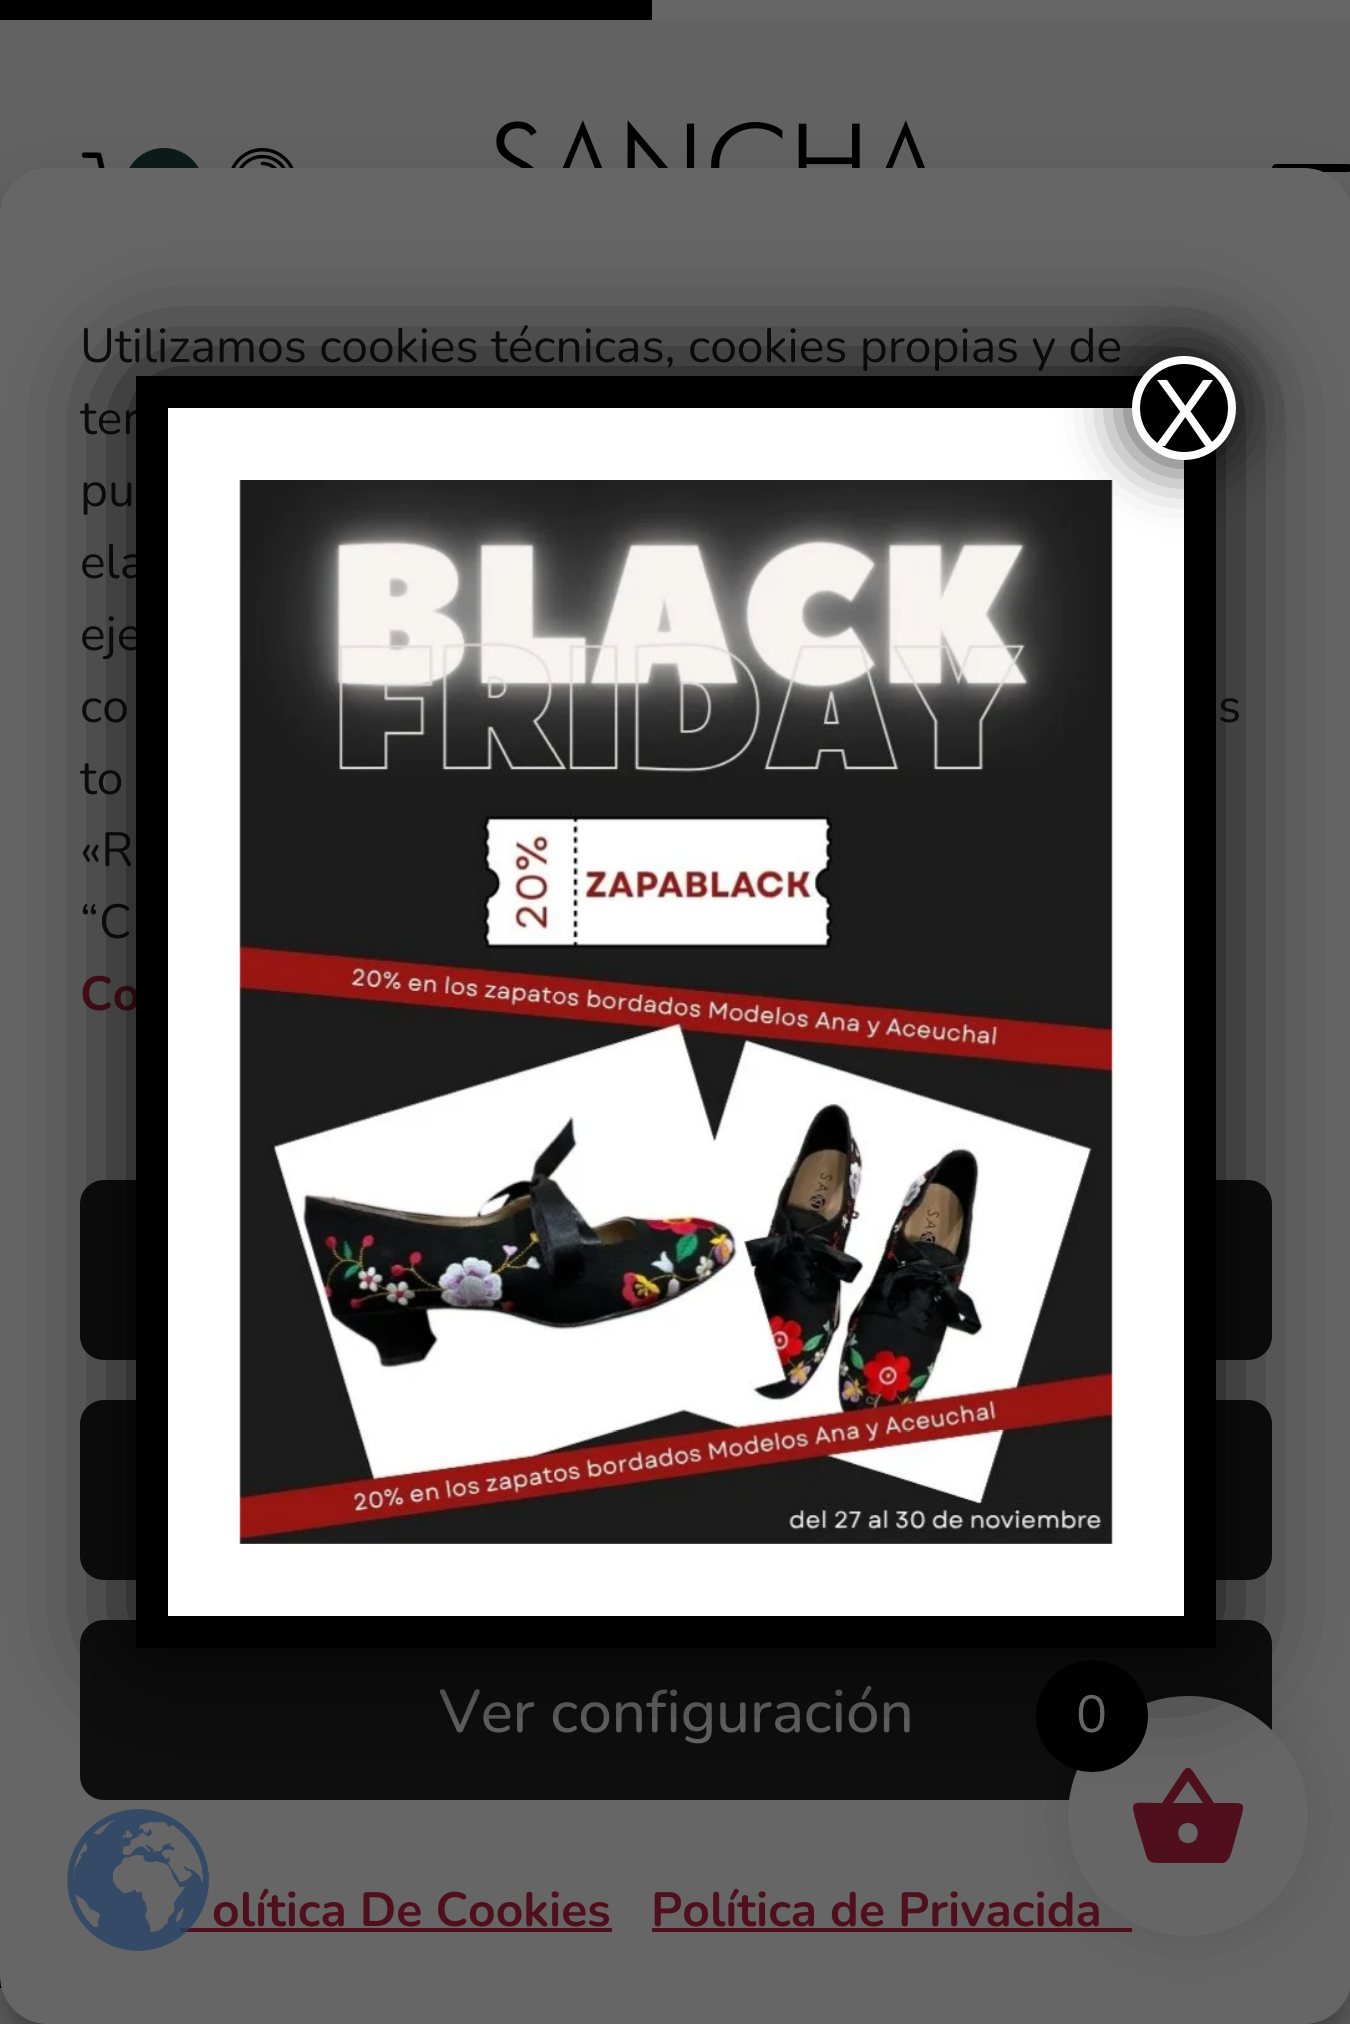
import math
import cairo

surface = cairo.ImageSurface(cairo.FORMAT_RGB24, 1350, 2024)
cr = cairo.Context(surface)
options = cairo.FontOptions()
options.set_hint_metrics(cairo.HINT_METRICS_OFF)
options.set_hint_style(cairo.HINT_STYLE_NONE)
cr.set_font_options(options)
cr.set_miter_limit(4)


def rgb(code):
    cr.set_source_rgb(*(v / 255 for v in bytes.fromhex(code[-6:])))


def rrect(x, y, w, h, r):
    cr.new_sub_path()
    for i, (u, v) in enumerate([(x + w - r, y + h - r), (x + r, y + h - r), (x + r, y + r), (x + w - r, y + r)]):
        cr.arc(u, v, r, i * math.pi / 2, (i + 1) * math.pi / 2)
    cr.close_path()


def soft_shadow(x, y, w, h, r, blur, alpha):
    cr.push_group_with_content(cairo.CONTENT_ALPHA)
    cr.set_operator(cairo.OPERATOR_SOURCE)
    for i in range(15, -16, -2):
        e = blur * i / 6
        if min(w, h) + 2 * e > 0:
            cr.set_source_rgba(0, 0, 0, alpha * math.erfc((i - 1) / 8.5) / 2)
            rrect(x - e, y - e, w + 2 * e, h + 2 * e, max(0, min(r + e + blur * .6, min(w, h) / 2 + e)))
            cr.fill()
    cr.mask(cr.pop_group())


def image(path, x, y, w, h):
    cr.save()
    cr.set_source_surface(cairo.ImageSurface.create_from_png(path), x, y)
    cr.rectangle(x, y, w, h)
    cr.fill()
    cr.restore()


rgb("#000000")
cr.paint()
rgb("#626262")
cr.rectangle(0, 20, 1350, 196)
cr.fill()
rgb("#666666")
cr.rectangle(652, 0, 698, 20)
cr.fill()
image("img/1.png", 231, 148, 63, 20)
image("img/2.png", 81, 152, 24, 16)
rgb("#0a1b1a")
cr.arc(164, 188, 40, 0, 2 * math.pi)
cr.fill()
image("img/3.png", 496, 120, 429, 48)
rgb("#000000")
rrect(1272, 164, 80, 8, 4)
cr.fill()
rgb("#666666")
cr.rectangle(0, 1988, 1350, 36)
cr.fill()
rgb("#000000")
soft_shadow(0, 192, 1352, 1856, 48, 12, 0.23)
soft_shadow(0, 208, 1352, 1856, 48, 40, 0.19)
rgb("#666666")
rrect(0, 168, 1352, 1856, 48)
cr.fill()
rgb("#0e0e0e")
rrect(82, 1182, 1188, 176, 22)
cr.fill_preserve()
cr.set_line_width(4)
cr.stroke()
rrect(82, 1402, 1188, 176, 22)
cr.fill_preserve()
cr.stroke()
rrect(82, 1622, 1188, 176, 22)
cr.fill_preserve()
cr.stroke()
rgb("#500f1c")
cr.rectangle(180, 1928, 432, 4)
cr.fill()
cr.rectangle(652, 1928, 480, 4)
cr.fill()
rgb("#000000")
soft_shadow(1060, 1688, 256, 256, 128, 30, 0.1)
image("img/5.png", 67, 1809, 142, 142)
cr.select_font_face("Nunito")
cr.set_font_size(48)
rgb("#0e0e0e")
for x, y, s in [
    (80, 362, "Utilizamos cookies técnicas, cookies propias y de"),
    (80, 434, "ter"),
    (80, 506, "pu"),
    (80, 578, "ela"),
    (80, 650, "eje"),
    (80, 722, "co"),
    (1218, 722, "s"),
    (80, 794, "to"),
    (80, 866, "«R"),
    (80, 938, "“C"),
]:
    cr.move_to(x, y)
    cr.show_text(s)
cr.select_font_face("Nunito", cairo.FONT_SLANT_NORMAL, cairo.FONT_WEIGHT_BOLD)
rgb("#500f1c")
cr.move_to(80, 1010)
cr.show_text("Co")
cr.select_font_face("Nunito Medium")
cr.set_font_size(60)
rgb("#666666")
cr.move_to(439, 1732)
cr.show_text("Ver configuración")
cr.select_font_face("Nunito", cairo.FONT_SLANT_NORMAL, cairo.FONT_WEIGHT_BOLD)
cr.set_font_size(48)
rgb("#500f1c")
cr.move_to(212, 1926)
cr.show_text("olítica De Cookies")
cr.move_to(651, 1926)
cr.show_text("Política de Privacida")
rgb("#666666")
cr.new_path()
cr.arc(1188, 1816, 120, 0, 2 * math.pi)
cr.fill()
rgb("#500f1c")
cr.new_path()
cr.move_to(1188, 1843)
cr.curve_to(1201, 1843, 1201, 1823, 1188, 1823)
cr.curve_to(1175, 1823, 1175, 1843, 1188, 1843)
cr.close_path()
cr.move_to(1173, 1803)
cr.line_to(1203, 1803)
cr.line_to(1188, 1781)
cr.close_path()
cr.move_to(1214, 1803)
cr.line_to(1234, 1803)
cr.curve_to(1244, 1803, 1244, 1805, 1242, 1814)
cr.line_to(1233, 1847)
cr.curve_to(1231, 1853, 1230, 1861, 1223, 1863)
cr.line_to(1166, 1863)
cr.curve_to(1149, 1863, 1148, 1864, 1144, 1848)
cr.line_to(1137, 1825)
cr.curve_to(1130, 1798, 1129, 1803, 1162, 1803)
cr.line_to(1180, 1776)
cr.curve_to(1187, 1765, 1189, 1765, 1196, 1776)
cr.close_path()
cr.fill()
rgb("#000000")
cr.arc(1092, 1716, 56, 0, 2 * math.pi)
cr.fill()
rgb("#020202")
soft_shadow(136, 376, 1080, 1272, 12, 60, 1)
rgb("#ffffff")
cr.rectangle(168, 408, 1016, 1208)
cr.fill()
cr.new_path()
cr.move_to(152, 392)
cr.line_to(1200, 392)
cr.line_to(1200, 1632)
cr.line_to(152, 1632)
cr.close_path()
rgb("#000000")
cr.set_line_width(32)
cr.stroke()
image("img/4.png", 239, 480, 875, 1064)
rgb("#020202")
soft_shadow(1128, 352, 112, 112, 56, 30, 0.75)
rgb("#000000")
cr.arc(1184, 408, 48, 0, 2 * math.pi)
cr.fill_preserve()
rgb("#ffffff")
cr.set_line_width(8)
cr.stroke()
cr.select_font_face("Liberation Sans")
cr.set_font_size(96)
cr.move_to(1153, 446)
cr.show_text("X")
cr.select_font_face("Nunito")
cr.set_font_size(52)
rgb("#666666")
cr.move_to(1076, 1732)
cr.show_text("0")
surface.write_to_png("page.png")
